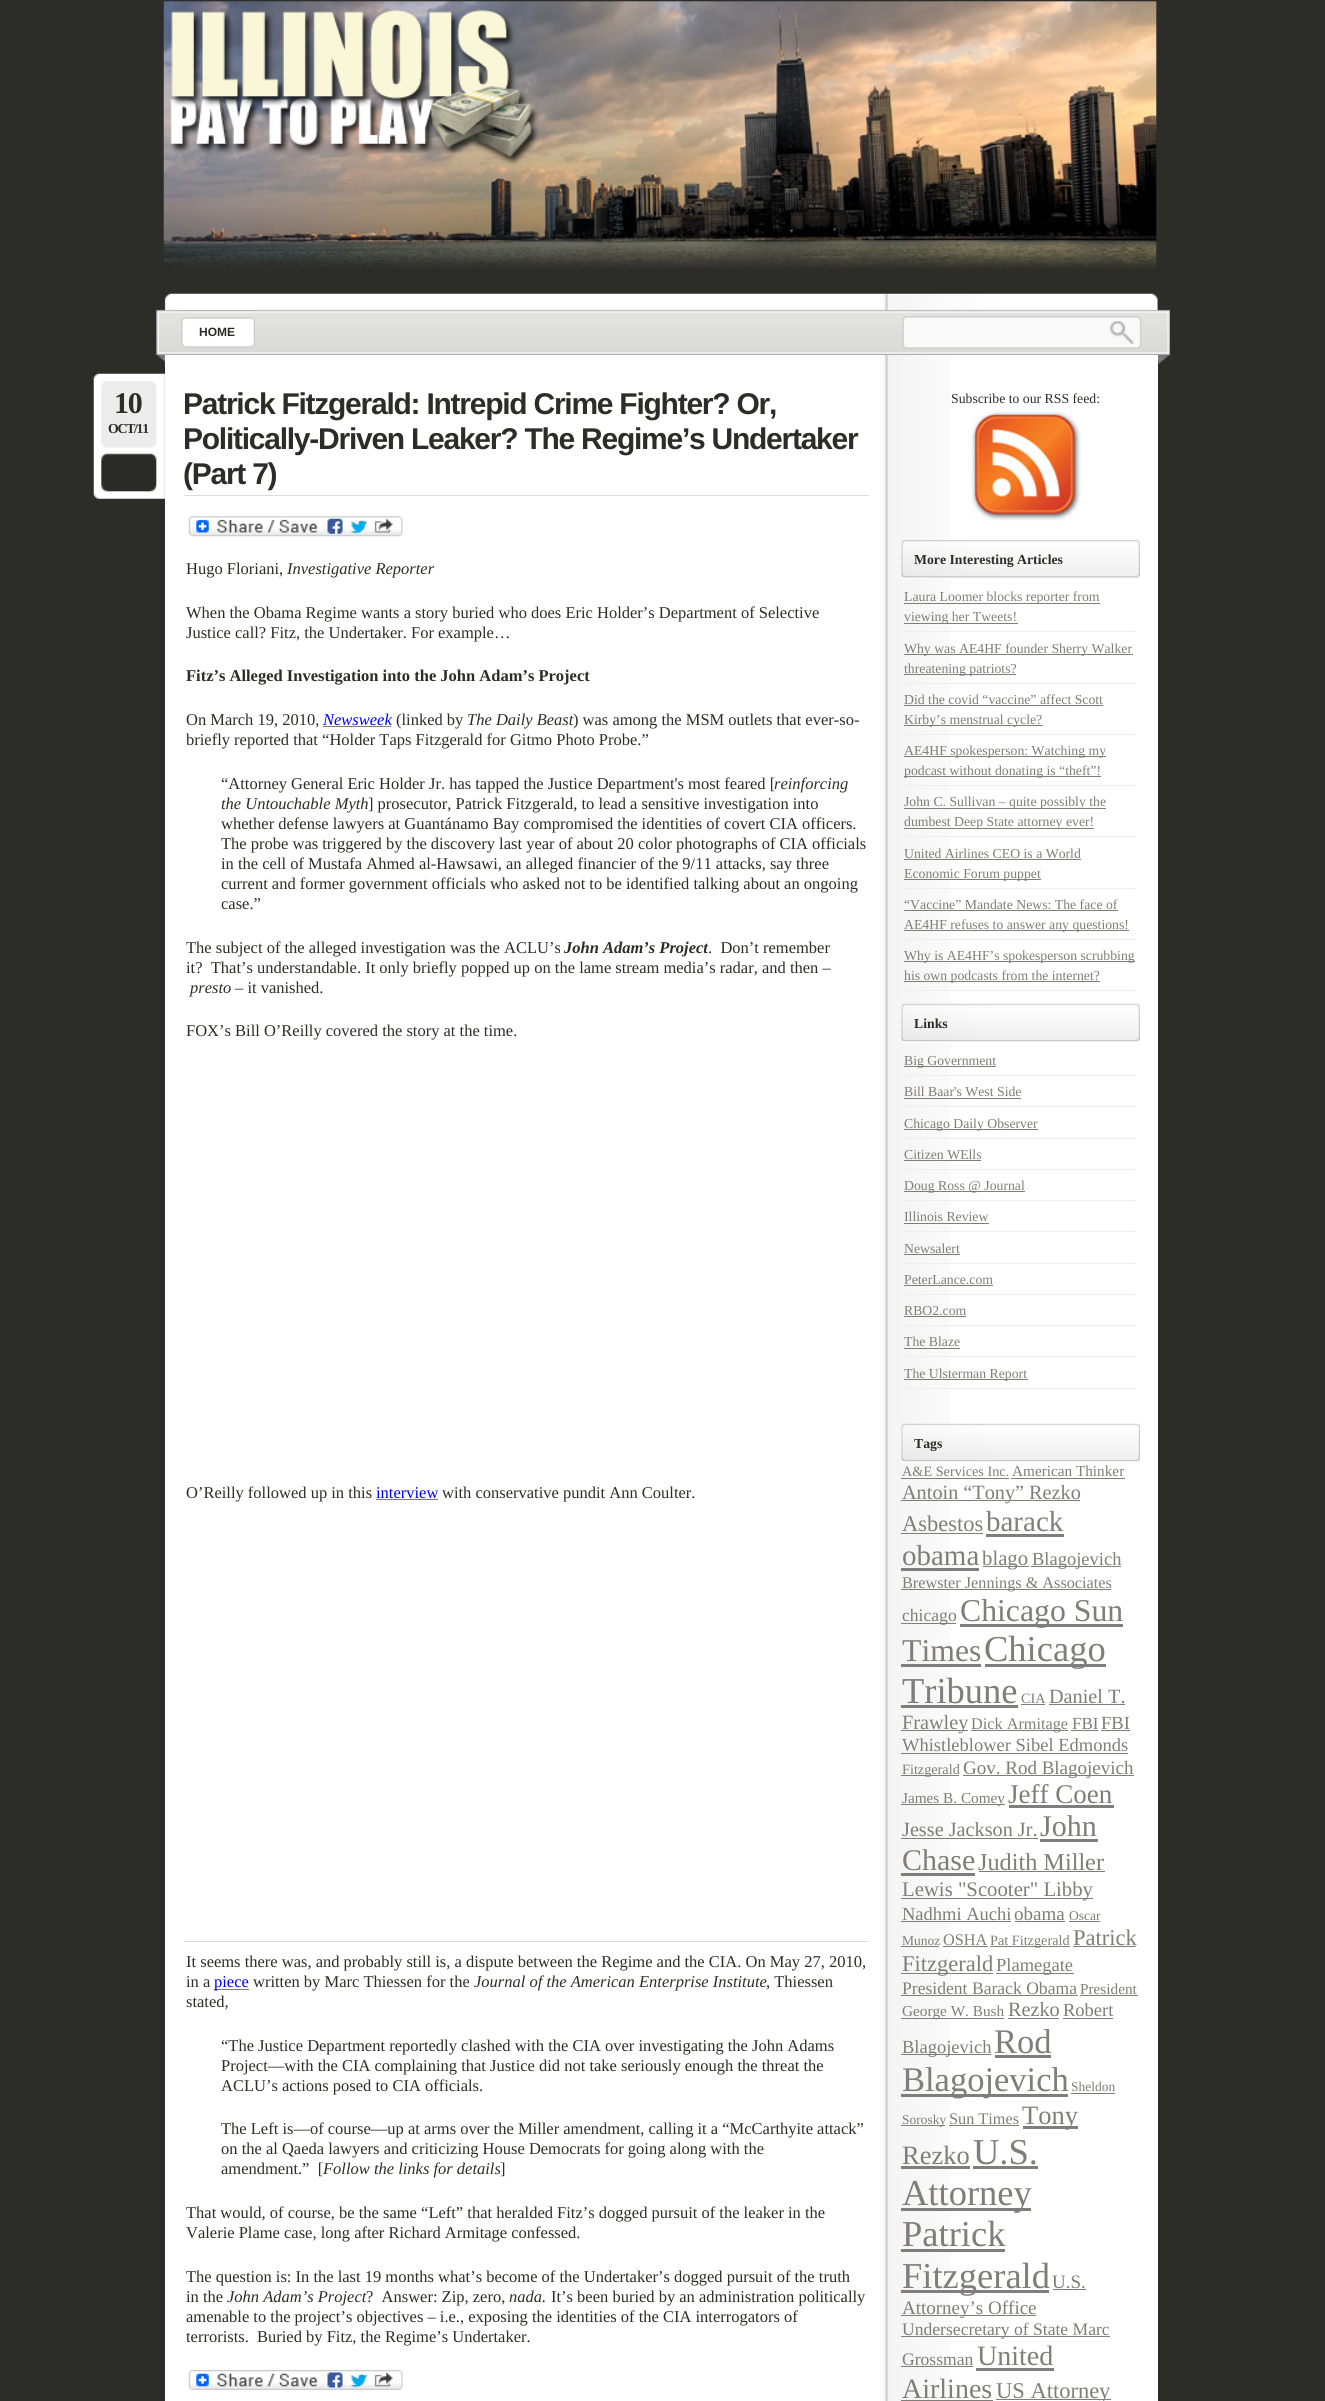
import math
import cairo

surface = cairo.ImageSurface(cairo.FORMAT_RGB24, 1325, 2401)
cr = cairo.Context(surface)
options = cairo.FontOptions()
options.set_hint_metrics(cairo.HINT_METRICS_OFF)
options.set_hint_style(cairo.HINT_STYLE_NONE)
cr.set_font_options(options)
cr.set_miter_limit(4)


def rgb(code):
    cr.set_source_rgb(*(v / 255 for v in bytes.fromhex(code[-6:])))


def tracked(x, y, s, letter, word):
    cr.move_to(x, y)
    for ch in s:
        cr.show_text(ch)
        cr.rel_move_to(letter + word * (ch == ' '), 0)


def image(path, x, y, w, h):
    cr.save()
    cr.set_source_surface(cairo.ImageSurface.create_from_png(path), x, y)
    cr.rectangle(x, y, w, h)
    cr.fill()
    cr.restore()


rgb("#2c2c29")
cr.paint()
image("img/1.png", 163, 1, 994, 268)
image("img/2.png", 156, 293, 1014, 71)
image("img/3.png", 181, 310, 74, 38)
image("img/4.png", 251, 317, 4, 31)
image("img/5.png", 902, 316, 240, 33)
rgb("#ffffff")
cr.rectangle(165, 355, 993, 2046)
cr.fill()
image("img/6.png", 884, 355, 67, 2046)
image("img/7.png", 93, 373, 72, 126)
rgb("#dcdcdb")
cr.rectangle(184, 495, 685, 1)
cr.fill()
image("img/8.png", 188, 516, 215, 21)
for x, y, w, h, color in [
    (323, 726, 68, 1, "#807d7a"),
    (376, 1499, 62, 1, "#807d7a"),
    (184, 1941, 685, 1, "#dcdcdb"),
    (214, 1989, 35, 1, "#807d7a"),
]:
    rgb(color)
    cr.rectangle(x, y, w, h)
    cr.fill()
image("img/9.png", 188, 2370, 215, 20)
image("img/10.png", 971, 411, 110, 110)
rgb("#ffffff")
cr.rectangle(901, 540, 50, 39)
cr.fill()
image("img/11.png", 901, 540, 239, 38)
for x, y, w, h, color in [
    (904, 631, 231, 1, "#eeeeee"),
    (904, 603, 196, 1, "#807d7a"),
    (904, 623, 114, 1, "#807d7a"),
    (904, 683, 231, 1, "#eeeeee"),
    (904, 654, 229, 1, "#807d7a"),
    (904, 674, 112, 1, "#807d7a"),
    (904, 734, 231, 1, "#eeeeee"),
    (904, 705, 199, 1, "#807d7a"),
    (904, 725, 139, 1, "#807d7a"),
    (904, 785, 231, 1, "#eeeeee"),
    (904, 756, 202, 1, "#807d7a"),
    (904, 776, 197, 1, "#807d7a"),
    (904, 836, 231, 1, "#eeeeee"),
    (904, 808, 202, 1, "#807d7a"),
    (904, 828, 190, 1, "#807d7a"),
    (904, 888, 231, 1, "#eeeeee"),
    (904, 859, 177, 1, "#807d7a"),
    (904, 879, 137, 1, "#807d7a"),
    (904, 939, 231, 1, "#eeeeee"),
    (904, 910, 214, 1, "#807d7a"),
    (904, 930, 225, 1, "#807d7a"),
    (904, 990, 231, 1, "#eeeeee"),
    (904, 961, 231, 1, "#807d7a"),
    (904, 981, 196, 1, "#807d7a"),
    (901, 1004, 50, 39, "#ffffff"),
]:
    rgb(color)
    cr.rectangle(x, y, w, h)
    cr.fill()
image("img/12.png", 901, 1003, 239, 39)
for x, y, w, h, color in [
    (904, 1075, 231, 1, "#eeeeee"),
    (904, 1066, 92, 1, "#807d7a"),
    (904, 1106, 231, 1, "#eeeeee"),
    (904, 1098, 117, 1, "#807d7a"),
    (904, 1138, 231, 1, "#eeeeee"),
    (904, 1129, 134, 1, "#807d7a"),
    (904, 1169, 231, 1, "#eeeeee"),
    (904, 1160, 77, 1, "#807d7a"),
    (904, 1200, 231, 1, "#eeeeee"),
    (904, 1191, 121, 1, "#807d7a"),
    (904, 1231, 231, 1, "#eeeeee"),
    (904, 1223, 85, 1, "#807d7a"),
    (904, 1263, 231, 1, "#eeeeee"),
    (904, 1254, 56, 1, "#807d7a"),
    (904, 1294, 231, 1, "#eeeeee"),
    (904, 1285, 89, 1, "#807d7a"),
    (904, 1325, 231, 1, "#eeeeee"),
    (904, 1316, 62, 1, "#807d7a"),
    (904, 1356, 231, 1, "#eeeeee"),
    (904, 1348, 56, 1, "#807d7a"),
    (904, 1388, 231, 1, "#eeeeee"),
    (904, 1379, 124, 1, "#807d7a"),
    (901, 1424, 50, 39, "#ffffff"),
]:
    rgb(color)
    cr.rectangle(x, y, w, h)
    cr.fill()
image("img/12.png", 901, 1423, 239, 39)
for x, y, w, h, color in [
    (901, 1478, 108, 1, "#807d7a"),
    (1011, 1478, 114, 1, "#807d7a"),
    (901, 1500, 179, 1, "#807d7a"),
    (901, 1533, 82, 1, "#807d7a"),
    (986, 1534, 78, 3, "#807d7a"),
    (901, 1568, 78, 3, "#807d7a"),
    (983, 1566, 46, 1, "#807d7a"),
    (1031, 1566, 90, 1, "#807d7a"),
    (901, 1589, 210, 1, "#807d7a"),
    (901, 1623, 55, 1, "#807d7a"),
    (960, 1624, 163, 3, "#807d7a"),
    (901, 1664, 80, 3, "#807d7a"),
    (985, 1664, 121, 3, "#807d7a"),
    (901, 1705, 117, 3, "#807d7a"),
    (1021, 1704, 24, 1, "#807d7a"),
    (1049, 1704, 76, 1, "#807d7a"),
    (901, 1730, 67, 1, "#807d7a"),
    (971, 1730, 97, 1, "#807d7a"),
    (1071, 1730, 27, 1, "#807d7a"),
    (1101, 1730, 29, 1, "#807d7a"),
    (901, 1753, 227, 1, "#807d7a"),
    (901, 1775, 58, 1, "#807d7a"),
    (963, 1775, 171, 1, "#807d7a"),
    (901, 1804, 104, 1, "#807d7a"),
    (1009, 1805, 105, 3, "#807d7a"),
    (901, 1838, 137, 1, "#807d7a"),
    (1040, 1839, 58, 3, "#807d7a"),
    (901, 1873, 74, 3, "#807d7a"),
    (979, 1871, 126, 1, "#807d7a"),
    (901, 1898, 192, 1, "#807d7a"),
    (901, 1921, 110, 1, "#807d7a"),
    (1015, 1921, 50, 1, "#807d7a"),
    (1069, 1921, 31, 1, "#807d7a"),
    (901, 1946, 38, 1, "#807d7a"),
    (943, 1946, 45, 1, "#807d7a"),
    (990, 1946, 80, 1, "#807d7a"),
    (1073, 1946, 63, 1, "#807d7a"),
    (901, 1973, 92, 1, "#807d7a"),
    (996, 1973, 78, 1, "#807d7a"),
    (901, 1995, 177, 1, "#807d7a"),
    (1080, 1995, 58, 1, "#807d7a"),
    (901, 2018, 103, 1, "#807d7a"),
    (1008, 2018, 51, 1, "#807d7a"),
    (1063, 2018, 50, 1, "#807d7a"),
    (901, 2054, 90, 1, "#807d7a"),
    (995, 2055, 56, 3, "#807d7a"),
    (901, 2094, 167, 3, "#807d7a"),
    (1071, 2093, 44, 1, "#807d7a"),
    (901, 2125, 44, 1, "#807d7a"),
    (949, 2125, 70, 1, "#807d7a"),
    (1023, 2126, 55, 3, "#807d7a"),
    (901, 2166, 69, 3, "#807d7a"),
    (973, 2166, 65, 3, "#807d7a"),
    (901, 2208, 130, 3, "#807d7a"),
    (901, 2249, 104, 3, "#807d7a"),
    (901, 2290, 148, 3, "#807d7a"),
    (1053, 2289, 33, 1, "#807d7a"),
    (901, 2315, 135, 1, "#807d7a"),
    (901, 2336, 209, 1, "#807d7a"),
    (901, 2366, 72, 1, "#807d7a"),
    (976, 2368, 78, 3, "#807d7a"),
    (901, 2400, 92, 1, "#807d7a"),
    (996, 2399, 115, 1, "#807d7a"),
]:
    rgb(color)
    cr.rectangle(x, y, w, h)
    cr.fill()
cr.select_font_face("Liberation Sans", cairo.FONT_SLANT_NORMAL, cairo.FONT_WEIGHT_BOLD)
cr.set_font_size(12)
rgb("#2c2c29")
cr.move_to(199, 336)
cr.show_text("HOME")
cr.select_font_face("Liberation Serif", cairo.FONT_SLANT_NORMAL, cairo.FONT_WEIGHT_BOLD)
cr.set_font_size(30)
tracked(114, 413, "10", -1.25, 0)
cr.set_font_size(13.75)
tracked(108, 433, "OCT/11", -1.25, 0)
cr.select_font_face("Liberation Sans", cairo.FONT_SLANT_NORMAL, cairo.FONT_WEIGHT_BOLD)
cr.set_font_size(30)
for x, y, s in [
    (183, 414, "Patrick Fitzgerald: Intrepid Crime Fighter? Or,"),
    (183, 449, "Politically-Driven Leaker? The Regime’s Undertaker"),
    (183, 484, "(Part 7)"),
]:
    tracked(x, y, s, -1.25, 0)
cr.select_font_face("Liberation Serif")
cr.set_font_size(16.5)
cr.move_to(186, 574)
cr.show_text("Hugo Floriani,")
cr.select_font_face("Liberation Serif", cairo.FONT_SLANT_ITALIC)
cr.move_to(287, 574)
cr.show_text("Investigative Reporter")
cr.select_font_face("Liberation Serif")
cr.move_to(186, 618)
cr.show_text("When the Obama Regime wants a story buried who does Eric Holder’s Department of Selective")
cr.move_to(186, 638)
cr.show_text("Justice call? Fitz, the Undertaker. For example…")
cr.select_font_face("Liberation Serif", cairo.FONT_SLANT_NORMAL, cairo.FONT_WEIGHT_BOLD)
cr.move_to(186, 681)
cr.show_text("Fitz’s Alleged Investigation into the John Adam’s Project")
cr.select_font_face("Liberation Serif")
cr.move_to(186, 725)
cr.show_text("On March 19, 2010,")
cr.select_font_face("Liberation Serif", cairo.FONT_SLANT_ITALIC)
rgb("#0000ff")
cr.move_to(323, 725)
cr.show_text("Newsweek")
cr.select_font_face("Liberation Serif")
rgb("#2c2c29")
cr.move_to(396, 725)
cr.show_text("(linked by")
cr.select_font_face("Liberation Serif", cairo.FONT_SLANT_ITALIC)
cr.move_to(467, 725)
cr.show_text("The Daily Beast")
cr.select_font_face("Liberation Serif")
for x, y, s in [
    (573, 725, ") was among the MSM outlets that ever-so-"),
    (186, 745, "briefly reported that “Holder Taps Fitzgerald for Gitmo Photo Probe.”"),
    (221, 789, "“Attorney General Eric Holder Jr. has tapped the Justice Department's most feared ["),
]:
    cr.move_to(x, y)
    cr.show_text(s)
cr.select_font_face("Liberation Serif", cairo.FONT_SLANT_ITALIC)
cr.move_to(774, 789)
cr.show_text("reinforcing")
cr.move_to(221, 809)
cr.show_text("the Untouchable Myth")
cr.select_font_face("Liberation Serif")
for x, y, s in [
    (368, 809, "] prosecutor, Patrick Fitzgerald, to lead a sensitive investigation into"),
    (221, 829, "whether defense lawyers at Guantánamo Bay compromised the identities of covert CIA officers."),
    (221, 849, "The probe was triggered by the discovery last year of about 20 color photographs of CIA officials"),
    (221, 869, "in the cell of Mustafa Ahmed al-Hawsawi, an alleged financier of the 9/11 attacks, say three"),
    (221, 889, "current and former government officials who asked not to be identified talking about an ongoing"),
    (221, 909, "case.”"),
    (186, 953, "The subject of the alleged investigation was the ACLU’s"),
]:
    cr.move_to(x, y)
    cr.show_text(s)
cr.select_font_face("Liberation Serif", cairo.FONT_SLANT_ITALIC, cairo.FONT_WEIGHT_BOLD)
cr.move_to(564, 953)
cr.show_text("John Adam’s Project")
cr.select_font_face("Liberation Serif")
cr.move_to(708, 953)
cr.show_text(".  Don’t remember")
cr.move_to(186, 973)
cr.show_text("it?  That’s understandable. It only briefly popped up on the lame stream media’s radar, and then –")
cr.select_font_face("Liberation Serif", cairo.FONT_SLANT_ITALIC)
cr.move_to(190, 993)
cr.show_text("presto")
cr.select_font_face("Liberation Serif")
for x, y, s in [
    (235, 993, "– it vanished."),
    (186, 1036, "FOX’s Bill O’Reilly covered the story at the time."),
    (186, 1498, "O’Reilly followed up in this"),
]:
    cr.move_to(x, y)
    cr.show_text(s)
rgb("#0000ff")
cr.move_to(376, 1498)
cr.show_text("interview")
rgb("#2c2c29")
for x, y, s in [
    (442, 1498, "with conservative pundit Ann Coulter."),
    (186, 1967, "It seems there was, and probably still is, a dispute between the Regime and the CIA. On May 27, 2010,"),
    (186, 1987, "in a"),
]:
    cr.move_to(x, y)
    cr.show_text(s)
rgb("#0000ff")
cr.move_to(214, 1987)
cr.show_text("piece")
rgb("#2c2c29")
cr.move_to(253, 1987)
cr.show_text("written by Marc Thiessen for the")
cr.select_font_face("Liberation Serif", cairo.FONT_SLANT_ITALIC)
cr.move_to(474, 1987)
cr.show_text("Journal of the American Enterprise Institute")
cr.select_font_face("Liberation Serif")
for x, y, s in [
    (766, 1987, ", Thiessen"),
    (186, 2007, "stated,"),
    (221, 2051, "“The Justice Department reportedly clashed with the CIA over investigating the John Adams"),
    (221, 2071, "Project—with the CIA complaining that Justice did not take seriously enough the threat the"),
    (221, 2091, "ACLU’s actions posed to CIA officials."),
    (221, 2134, "The Left is—of course—up at arms over the Miller amendment, calling it a “McCarthyite attack”"),
    (221, 2154, "on the al Qaeda lawyers and criticizing House Democrats for going along with the"),
    (221, 2174, "amendment.”  ["),
]:
    cr.move_to(x, y)
    cr.show_text(s)
cr.select_font_face("Liberation Serif", cairo.FONT_SLANT_ITALIC)
cr.move_to(323, 2174)
cr.show_text("Follow the links for details")
cr.select_font_face("Liberation Serif")
for x, y, s in [
    (500, 2174, "]"),
    (186, 2218, "That would, of course, be the same “Left” that heralded Fitz’s dogged pursuit of the leaker in the"),
    (186, 2238, "Valerie Plame case, long after Richard Armitage confessed."),
    (186, 2282, "The question is: In the last 19 months what’s become of the Undertaker’s dogged pursuit of the truth"),
    (186, 2302, "in the"),
]:
    cr.move_to(x, y)
    cr.show_text(s)
cr.select_font_face("Liberation Serif", cairo.FONT_SLANT_ITALIC)
cr.move_to(227, 2302)
cr.show_text("John Adam’s Project")
cr.select_font_face("Liberation Serif")
cr.move_to(366, 2302)
cr.show_text("?  Answer: Zip, zero,")
cr.select_font_face("Liberation Serif", cairo.FONT_SLANT_ITALIC)
cr.move_to(509, 2302)
cr.show_text("nada.")
cr.select_font_face("Liberation Serif")
for x, y, s in [
    (551, 2302, "It’s been buried by an administration politically"),
    (186, 2322, "amenable to the project’s objectives – i.e., exposing the identities of the CIA interrogators of"),
    (186, 2342, "terrorists.  Buried by Fitz, the Regime’s Undertaker."),
]:
    cr.move_to(x, y)
    cr.show_text(s)
cr.set_font_size(13.75)
cr.move_to(951, 403)
cr.show_text("Subscribe to our RSS feed:")
cr.select_font_face("Liberation Serif", cairo.FONT_SLANT_NORMAL, cairo.FONT_WEIGHT_BOLD)
cr.move_to(914, 564)
cr.show_text("More Interesting Articles")
cr.select_font_face("Liberation Serif")
rgb("#807d7a")
for x, y, s in [
    (904, 601, "Laura Loomer blocks reporter from"),
    (904, 621, "viewing her Tweets!"),
    (904, 653, "Why was AE4HF founder Sherry Walker"),
    (904, 673, "threatening patriots?"),
    (904, 704, "Did the covid “vaccine” affect Scott"),
    (904, 724, "Kirby’s menstrual cycle?"),
    (904, 755, "AE4HF spokesperson: Watching my"),
    (904, 775, "podcast without donating is “theft”!"),
    (904, 806, "John C. Sullivan – quite possibly the"),
    (904, 826, "dumbest Deep State attorney ever!"),
    (904, 858, "United Airlines CEO is a World"),
    (904, 878, "Economic Forum puppet"),
    (904, 909, "“Vaccine” Mandate News: The face of"),
    (904, 929, "AE4HF refuses to answer any questions!"),
    (904, 960, "Why is AE4HF’s spokesperson scrubbing"),
    (904, 980, "his own podcasts from the internet?"),
]:
    cr.move_to(x, y)
    cr.show_text(s)
cr.select_font_face("Liberation Serif", cairo.FONT_SLANT_NORMAL, cairo.FONT_WEIGHT_BOLD)
rgb("#2c2c29")
cr.move_to(914, 1028)
cr.show_text("Links")
cr.select_font_face("Liberation Serif")
rgb("#807d7a")
for x, y, s in [
    (904, 1065, "Big Government"),
    (904, 1096, "Bill Baar's West Side"),
    (904, 1128, "Chicago Daily Observer"),
    (904, 1159, "Citizen WElls"),
    (904, 1190, "Doug Ross @ Journal"),
    (904, 1221, "Illinois Review"),
    (904, 1253, "Newsalert"),
    (904, 1284, "PeterLance.com"),
    (904, 1315, "RBO2.com"),
    (904, 1346, "The Blaze"),
    (904, 1378, "The Ulsterman Report"),
]:
    cr.move_to(x, y)
    cr.show_text(s)
cr.select_font_face("Liberation Serif", cairo.FONT_SLANT_NORMAL, cairo.FONT_WEIGHT_BOLD)
rgb("#2c2c29")
cr.move_to(914, 1448)
cr.show_text("Tags")
cr.select_font_face("Liberation Serif")
cr.set_font_size(14.25)
rgb("#807d7a")
cr.move_to(902, 1476)
cr.show_text("A&E Services Inc.")
cr.set_font_size(15.25)
cr.move_to(1012, 1476)
cr.show_text("American Thinker")
cr.set_font_size(20.25)
cr.move_to(902, 1499)
cr.show_text("Antoin “Tony” Rezko")
cr.set_font_size(22.5)
cr.move_to(902, 1531)
cr.show_text("Asbestos")
cr.set_font_size(29)
cr.move_to(986, 1531)
cr.show_text("barack")
cr.move_to(902, 1565)
cr.show_text("obama")
cr.set_font_size(20.75)
cr.move_to(982, 1565)
cr.show_text("blago")
cr.set_font_size(18.5)
cr.move_to(1032, 1565)
cr.show_text("Blagojevich")
cr.set_font_size(16.25)
cr.move_to(902, 1588)
cr.show_text("Brewster Jennings & Associates")
cr.set_font_size(17.6)
cr.move_to(902, 1621)
cr.show_text("chicago")
cr.set_font_size(31.75)
cr.move_to(960, 1621)
cr.show_text("Chicago Sun")
cr.move_to(902, 1661)
cr.show_text("Times")
cr.set_font_size(36.5)
cr.move_to(984, 1661)
cr.show_text("Chicago")
cr.move_to(902, 1703)
cr.show_text("Tribune")
cr.set_font_size(14.25)
cr.move_to(1021, 1703)
cr.show_text("CIA")
cr.set_font_size(20.25)
cr.move_to(1049, 1703)
cr.show_text("Daniel T.")
cr.move_to(902, 1729)
cr.show_text("Frawley")
cr.set_font_size(16.25)
cr.move_to(971, 1729)
cr.show_text("Dick Armitage")
cr.set_font_size(17)
cr.move_to(1072, 1729)
cr.show_text("FBI")
cr.set_font_size(18.5)
cr.move_to(1101, 1729)
cr.show_text("FBI")
cr.move_to(902, 1751)
cr.show_text("Whistleblower Sibel Edmonds")
cr.set_font_size(14.25)
cr.move_to(902, 1774)
cr.show_text("Fitzgerald")
cr.set_font_size(19)
cr.move_to(963, 1774)
cr.show_text("Gov. Rod Blagojevich")
cr.set_font_size(15.25)
cr.move_to(902, 1803)
cr.show_text("James B. Comey")
cr.set_font_size(27)
cr.move_to(1008, 1803)
cr.show_text("Jeff Coen")
cr.set_font_size(20.25)
cr.move_to(902, 1836)
cr.show_text("Jesse Jackson Jr.")
cr.set_font_size(30)
cr.move_to(1040, 1836)
cr.show_text("John")
cr.move_to(902, 1870)
cr.show_text("Chase")
cr.set_font_size(24.25)
cr.move_to(978, 1870)
cr.show_text("Judith Miller")
cr.set_font_size(20.75)
cr.move_to(902, 1896)
cr.show_text("Lewis \"Scooter\" Libby")
cr.set_font_size(18.5)
cr.move_to(902, 1920)
cr.show_text("Nadhmi Auchi")
cr.set_font_size(19)
cr.move_to(1014, 1920)
cr.show_text("obama")
cr.set_font_size(13.5)
cr.move_to(1069, 1920)
cr.show_text("Oscar")
cr.move_to(902, 1945)
cr.show_text("Munoz")
cr.set_font_size(16.25)
cr.move_to(943, 1945)
cr.show_text("OSHA")
cr.set_font_size(14.25)
cr.move_to(990, 1945)
cr.show_text("Pat Fitzgerald")
cr.set_font_size(22.5)
cr.move_to(1073, 1945)
cr.show_text("Patrick")
cr.move_to(902, 1971)
cr.show_text("Fitzgerald")
cr.set_font_size(18.5)
cr.move_to(996, 1971)
cr.show_text("Plamegate")
cr.set_font_size(17.6)
cr.move_to(902, 1994)
cr.show_text("President Barack Obama")
cr.set_font_size(15.25)
cr.move_to(1080, 1994)
cr.show_text("President")
cr.move_to(902, 2016)
cr.show_text("George W. Bush")
cr.set_font_size(20.25)
cr.move_to(1008, 2016)
cr.show_text("Rezko")
cr.set_font_size(18.5)
cr.move_to(1063, 2016)
cr.show_text("Robert")
cr.move_to(902, 2053)
cr.show_text("Blagojevich")
cr.set_font_size(34.5)
cr.move_to(994, 2053)
cr.show_text("Rod")
cr.move_to(902, 2091)
cr.show_text("Blagojevich")
cr.set_font_size(13.5)
cr.move_to(1071, 2091)
cr.show_text("Sheldon")
cr.move_to(902, 2124)
cr.show_text("Sorosky")
cr.set_font_size(16.25)
cr.move_to(949, 2124)
cr.show_text("Sun Times")
cr.set_font_size(26.5)
cr.move_to(1022, 2124)
cr.show_text("Tony")
cr.move_to(902, 2164)
cr.show_text("Rezko")
cr.set_font_size(36.5)
for x, y, s in [
    (973, 2164, "U.S."),
    (902, 2205, "Attorney"),
    (902, 2246, "Patrick"),
    (902, 2288, "Fitzgerald"),
]:
    cr.move_to(x, y)
    cr.show_text(s)
cr.set_font_size(19)
cr.move_to(1052, 2288)
cr.show_text("U.S.")
cr.move_to(902, 2314)
cr.show_text("Attorney’s Office")
cr.set_font_size(17.6)
cr.move_to(902, 2335)
cr.show_text("Undersecretary of State Marc")
cr.move_to(902, 2365)
cr.show_text("Grossman")
cr.set_font_size(28)
cr.move_to(977, 2365)
cr.show_text("United")
cr.move_to(902, 2398)
cr.show_text("Airlines")
cr.set_font_size(22.5)
cr.move_to(996, 2398)
cr.show_text("US Attorney")
surface.write_to_png("page.png")
